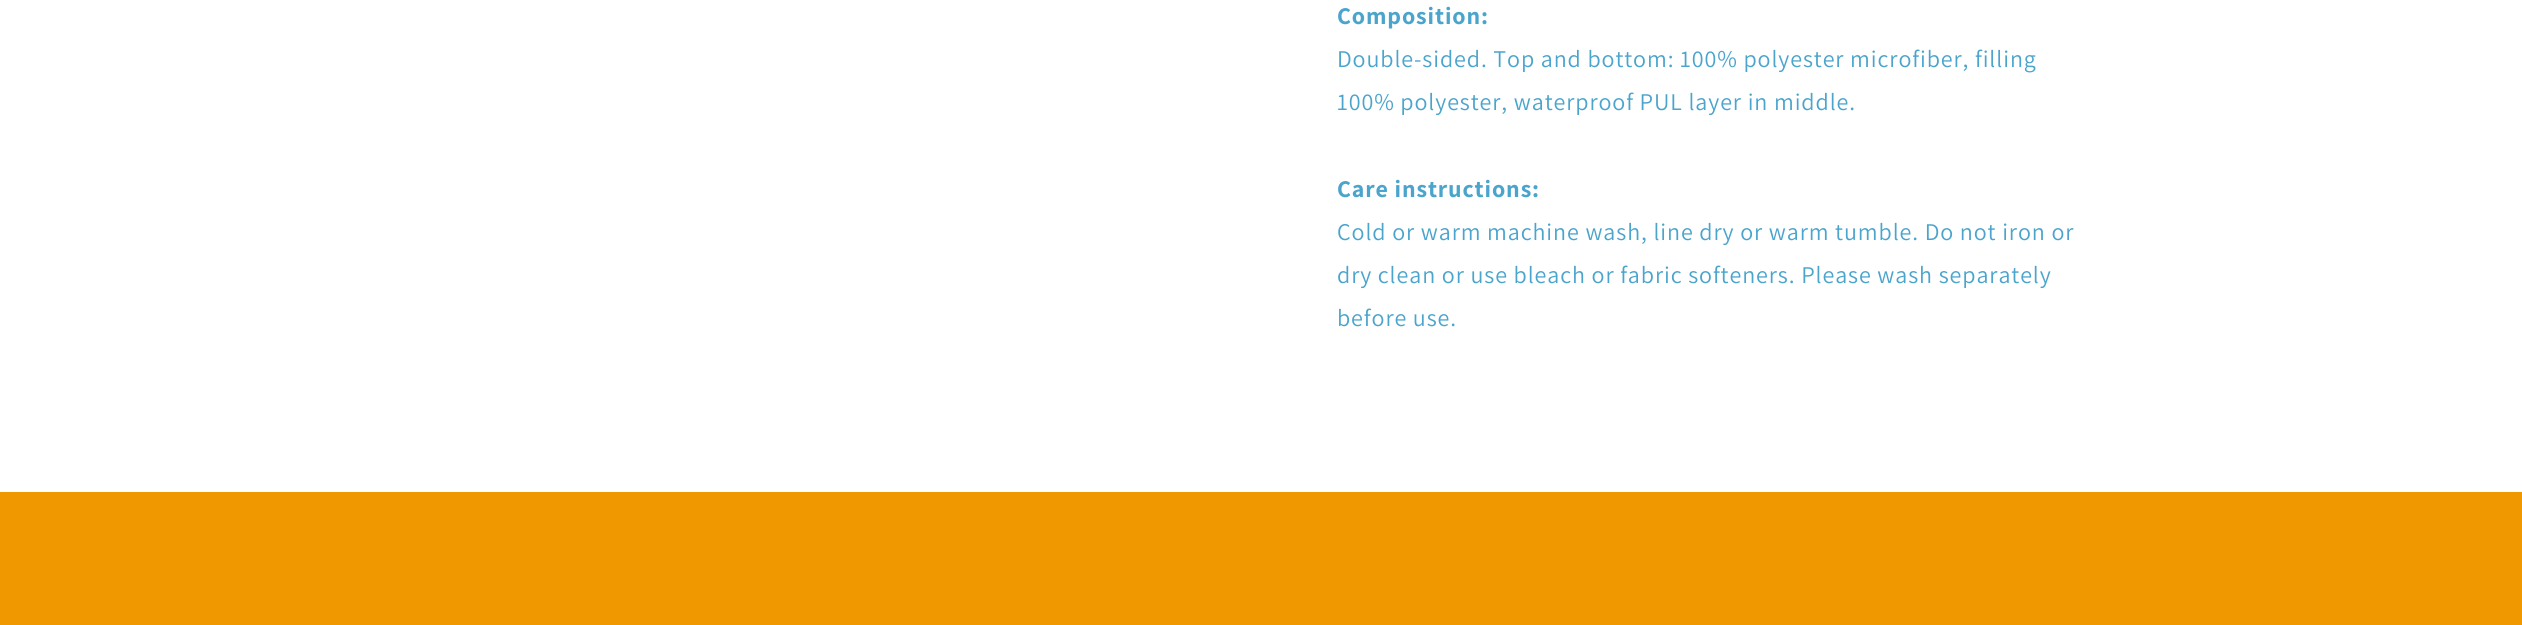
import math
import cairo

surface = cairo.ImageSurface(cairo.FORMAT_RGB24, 2522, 625)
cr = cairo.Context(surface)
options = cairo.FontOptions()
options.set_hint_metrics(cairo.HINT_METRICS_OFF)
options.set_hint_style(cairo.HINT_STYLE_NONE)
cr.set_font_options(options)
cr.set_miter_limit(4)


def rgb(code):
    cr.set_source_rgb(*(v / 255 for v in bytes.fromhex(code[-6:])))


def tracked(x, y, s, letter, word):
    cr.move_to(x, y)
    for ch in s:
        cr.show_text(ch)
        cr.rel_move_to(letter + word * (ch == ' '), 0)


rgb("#ffffff")
cr.paint()
rgb("#f09800")
cr.rectangle(0, 492, 2522, 133)
cr.fill()
cr.select_font_face("Assistant", cairo.FONT_SLANT_NORMAL, cairo.FONT_WEIGHT_BOLD)
cr.set_font_size(24)
rgb("#4aa4cc")
tracked(1337, 24, "Composition:", 0.9, 0)
cr.select_font_face("Assistant")
tracked(1337, 67, "Double-sided. Top and bottom: 100% polyester microfiber, filling", 0.9, 0)
tracked(1337, 110, "100% polyester, waterproof PUL layer in middle.", 0.9, 0)
cr.select_font_face("Assistant", cairo.FONT_SLANT_NORMAL, cairo.FONT_WEIGHT_BOLD)
tracked(1337, 197, "Care instructions:", 0.9, 0)
cr.select_font_face("Assistant")
for x, y, s in [
    (1337, 240, "Cold or warm machine wash, line dry or warm tumble. Do not iron or"),
    (1337, 283, "dry clean or use bleach or fabric softeners. Please wash separately"),
    (1337, 326, "before use."),
]:
    tracked(x, y, s, 0.9, 0)
surface.write_to_png("page.png")
